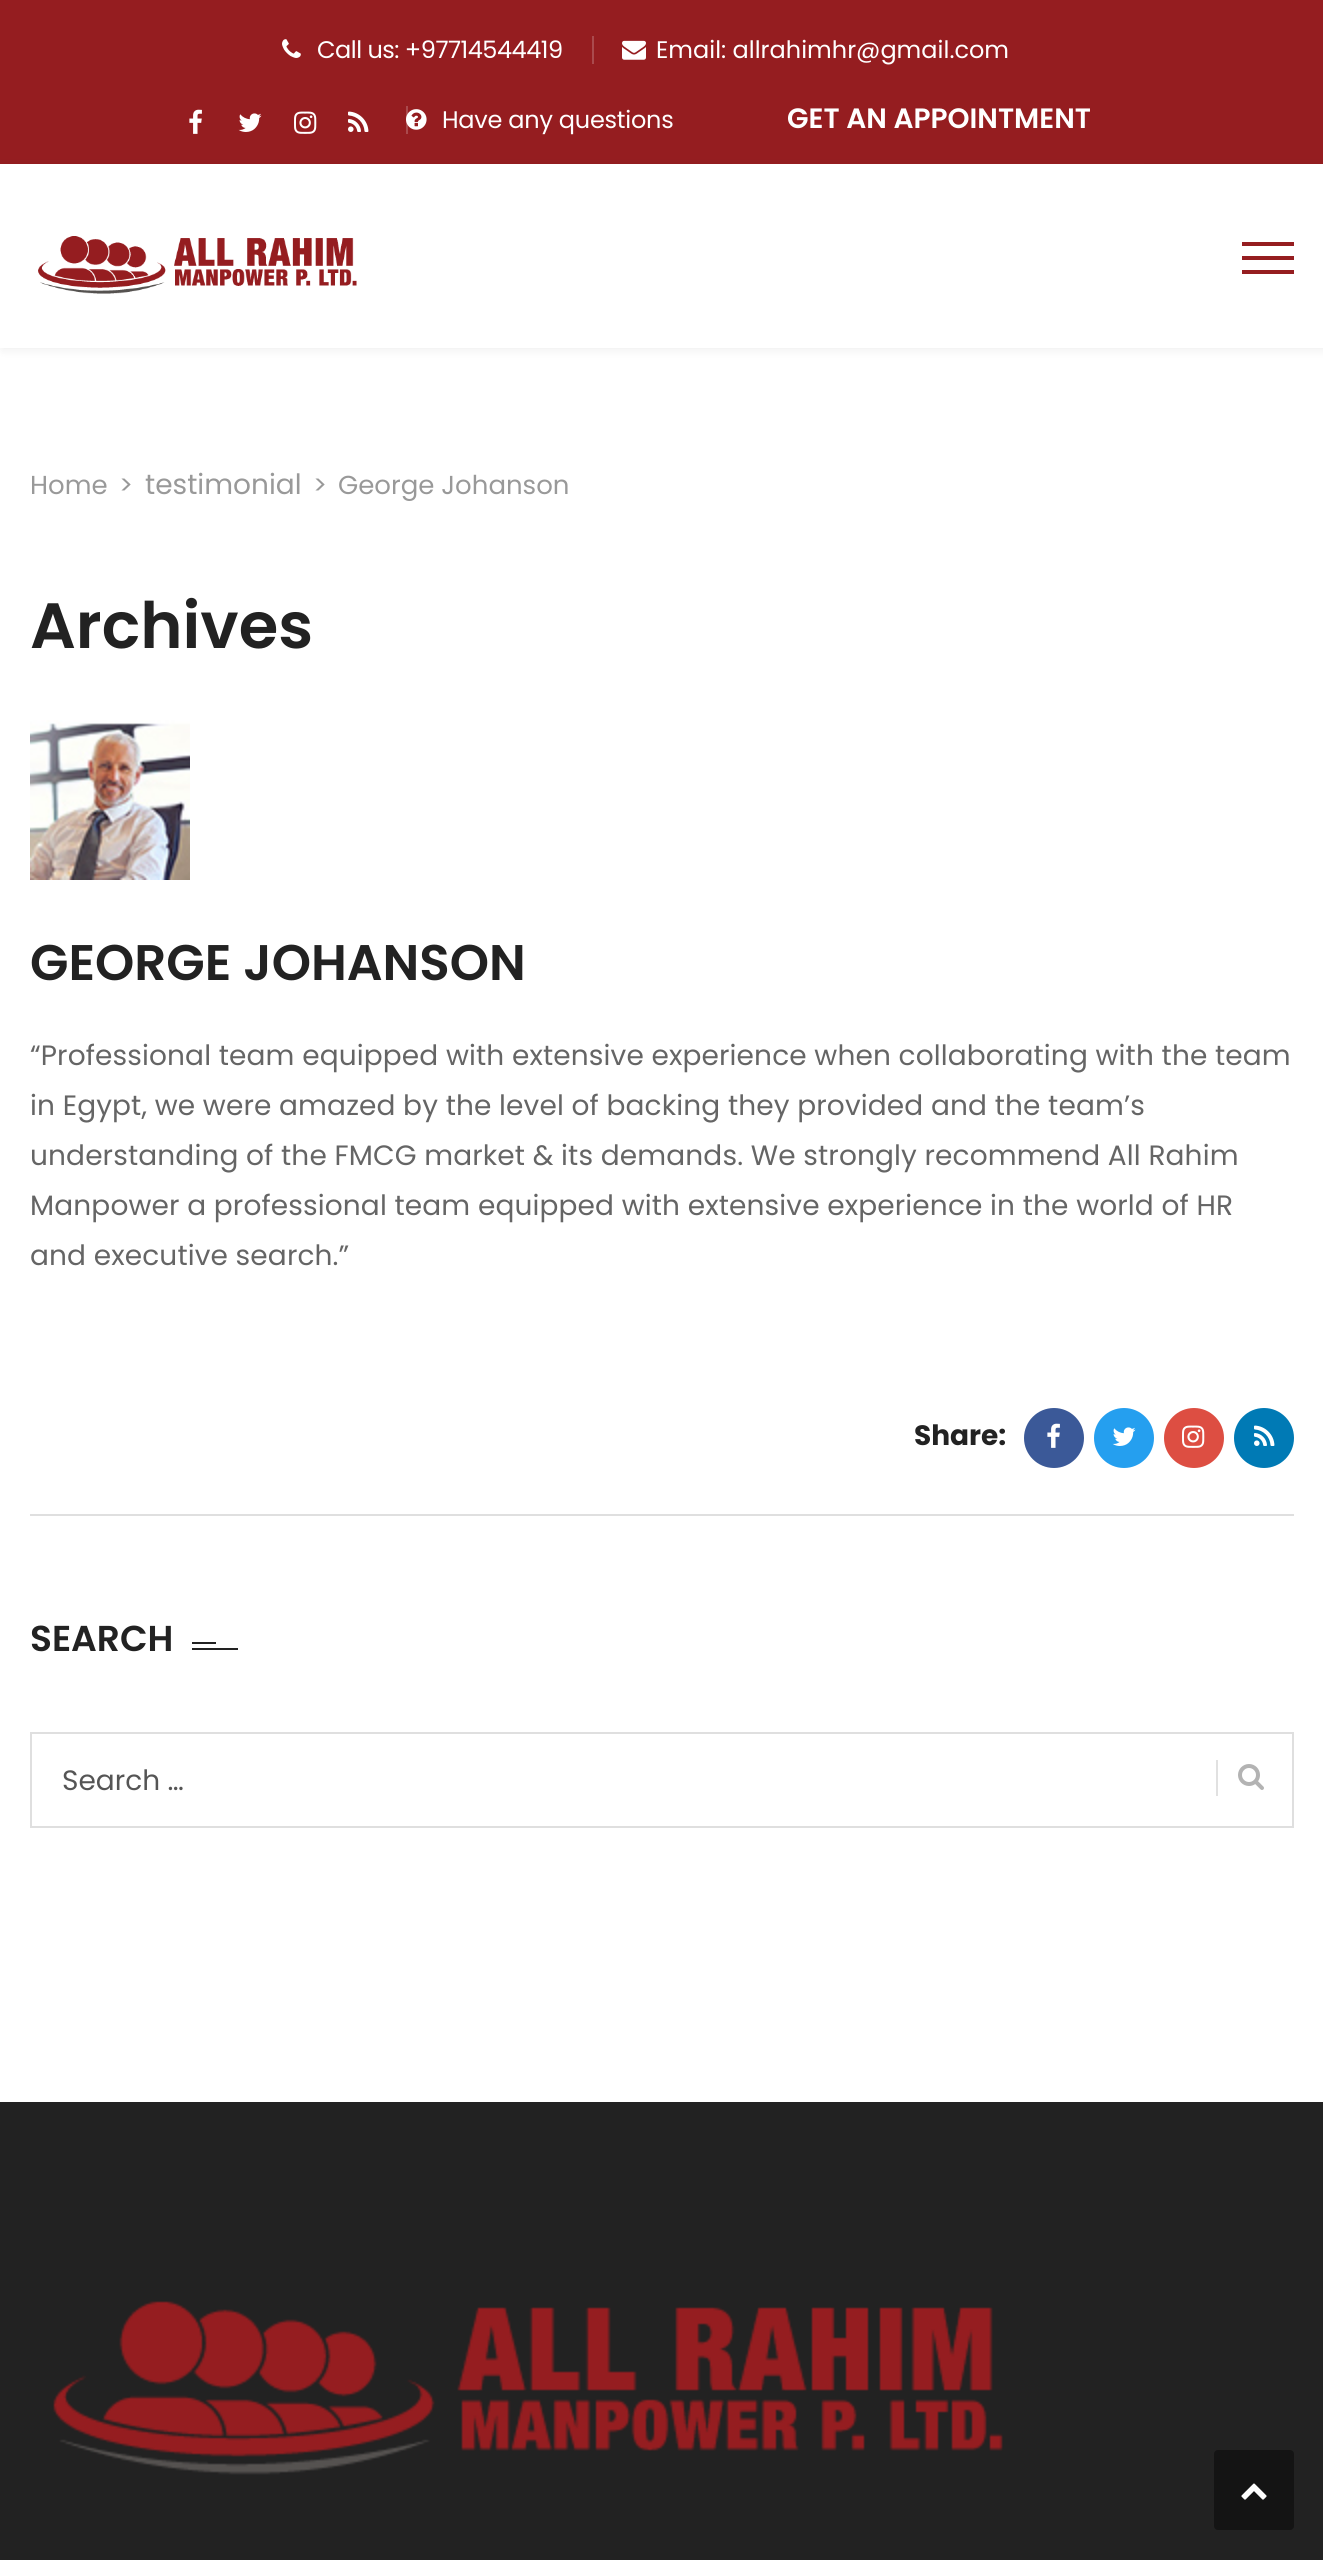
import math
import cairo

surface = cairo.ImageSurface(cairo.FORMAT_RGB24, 1323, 2560)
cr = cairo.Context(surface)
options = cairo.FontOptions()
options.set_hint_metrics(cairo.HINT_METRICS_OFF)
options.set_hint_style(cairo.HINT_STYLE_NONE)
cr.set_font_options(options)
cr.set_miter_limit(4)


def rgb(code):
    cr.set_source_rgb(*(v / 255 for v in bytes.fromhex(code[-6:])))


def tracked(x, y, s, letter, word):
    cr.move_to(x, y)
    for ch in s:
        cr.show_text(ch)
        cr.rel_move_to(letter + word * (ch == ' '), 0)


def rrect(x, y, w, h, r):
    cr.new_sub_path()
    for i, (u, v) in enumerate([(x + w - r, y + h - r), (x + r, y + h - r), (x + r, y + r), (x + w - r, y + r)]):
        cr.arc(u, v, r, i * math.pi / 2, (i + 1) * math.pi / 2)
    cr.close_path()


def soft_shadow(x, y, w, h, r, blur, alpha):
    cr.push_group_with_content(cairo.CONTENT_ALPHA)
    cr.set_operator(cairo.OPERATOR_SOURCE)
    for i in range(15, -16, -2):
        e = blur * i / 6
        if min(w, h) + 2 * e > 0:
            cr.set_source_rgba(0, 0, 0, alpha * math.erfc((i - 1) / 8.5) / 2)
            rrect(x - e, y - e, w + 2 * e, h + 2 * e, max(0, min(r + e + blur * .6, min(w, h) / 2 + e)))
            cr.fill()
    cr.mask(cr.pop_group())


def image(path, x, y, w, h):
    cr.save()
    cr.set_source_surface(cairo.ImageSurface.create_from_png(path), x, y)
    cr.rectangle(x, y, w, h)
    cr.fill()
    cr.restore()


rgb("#ffffff")
cr.paint()
rgb("#951d20")
cr.rectangle(0, 0, 1323, 164)
cr.fill()
image("img/1.png", 282, 39, 19, 19)
rgb("#aa4a4d")
cr.rectangle(592, 36, 2, 28)
cr.fill()
image("img/2.png", 622, 40, 24, 20)
image("img/3.png", 189, 109, 13, 25)
image("img/4.png", 238, 113, 24, 19)
image("img/5.png", 294, 111, 23, 23)
image("img/6.png", 348, 111, 21, 21)
image("img/7.png", 406, 109, 21, 21)
cr.set_source_rgba(1, 1, 1, 0.2)
cr.rectangle(406, 106, 2, 28)
cr.fill()
cr.save()
cr.set_fill_rule(cairo.FILL_RULE_EVEN_ODD)
cr.new_path()
cr.move_to(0, 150)
cr.line_to(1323, 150)
cr.line_to(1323, 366)
cr.line_to(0, 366)
cr.close_path()
cr.move_to(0, 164)
cr.line_to(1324, 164)
cr.line_to(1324, 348)
cr.line_to(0, 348)
cr.close_path()
cr.clip()
rgb("#000000")
soft_shadow(2, 166, 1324, 184, 0, 5, 0.07)
cr.restore()
rgb("#951d20")
cr.rectangle(732, 163, 412, 1)
cr.fill()
image("img/8.png", 38, 236, 319, 58)
for x, y, w, h, color in [
    (1242, 242, 52, 4, "#951d20"),
    (1242, 256, 52, 4, "#951d20"),
    (1242, 270, 52, 4, "#951d20"),
]:
    rgb(color)
    cr.rectangle(x, y, w, h)
    cr.fill()
image("img/9.png", 30, 720, 160, 160)
rgb("#3b5998")
cr.arc(1054, 1438, 30, 0, 2 * math.pi)
cr.fill()
image("img/10.png", 1047, 1423, 13, 25)
rgb("#259fef")
cr.arc(1124, 1438, 30, 0, 2 * math.pi)
cr.fill()
image("img/11.png", 1112, 1427, 24, 19)
rgb("#dd4e42")
cr.arc(1194, 1438, 30, 0, 2 * math.pi)
cr.fill()
image("img/12.png", 1182, 1425, 23, 23)
rgb("#007ab5")
cr.arc(1264, 1438, 30, 0, 2 * math.pi)
cr.fill()
image("img/13.png", 1254, 1425, 21, 21)
for x, y, w, h, color in [
    (30, 1514, 1264, 2, "#dfdfdf"),
    (192, 1642, 24, 2, "#222222"),
    (192, 1648, 46, 2, "#222222"),
]:
    rgb(color)
    cr.rectangle(x, y, w, h)
    cr.fill()
cr.rectangle(31, 1733, 1262, 94)
rgb("#dfdfdf")
cr.stroke()
image("img/14.png", 1238, 1764, 26, 26)
rgb("#e1e1e1")
cr.rectangle(1216, 1760, 2, 36)
cr.fill()
rgb("#222222")
cr.rectangle(0, 2102, 1323, 458)
cr.fill()
image("img/15.png", 53, 2301, 950, 174)
rgb("#141414")
rrect(1214, 2450, 80, 80, 4)
cr.fill()
image("img/16.png", 1241, 2483, 26, 17)
cr.select_font_face("Poppins")
cr.set_font_size(24)
rgb("#ffffff")
tracked(317, 58, "Call us: +97714544419", -0.5, 0)
cr.move_to(656, 58)
cr.show_text("Email: allrahimhr@gmail.com")
tracked(442, 128, "Have any questions", -0.25, 0)
cr.select_font_face("Poppins SemiBold")
cr.set_font_size(28)
cr.move_to(787, 128)
cr.show_text("GET AN APPOINTMENT")
cr.select_font_face("Poppins")
cr.set_font_size(26)
rgb("#999999")
cr.move_to(30, 494)
cr.show_text("Home")
cr.move_to(119, 494)
cr.show_text(">")
cr.set_font_size(28)
cr.move_to(145, 494)
cr.show_text("testimonial")
cr.set_font_size(26)
cr.move_to(313, 494)
cr.show_text(">")
cr.move_to(338, 494)
cr.show_text("George Johanson")
cr.select_font_face("Poppins SemiBold")
cr.set_font_size(64)
rgb("#222222")
cr.move_to(30, 648)
cr.show_text("Archives")
cr.set_font_size(50)
cr.move_to(30, 980)
cr.show_text("GEORGE JOHANSON")
cr.select_font_face("Poppins")
cr.set_font_size(28)
rgb("#656565")
for x, y, s in [
    (30, 1065, "“Professional team equipped with extensive experience when collaborating with the team"),
    (30, 1115, "in Egypt, we were amazed by the level of backing they provided and the team’s"),
    (30, 1165, "understanding of the FMCG market & its demands. We strongly recommend All Rahim"),
    (30, 1215, "Manpower a professional team equipped with extensive experience in the world of HR"),
    (30, 1265, "and executive search.”"),
]:
    tracked(x, y, s, 0.12, 0)
cr.select_font_face("Poppins", cairo.FONT_SLANT_NORMAL, cairo.FONT_WEIGHT_BOLD)
rgb("#222222")
cr.move_to(914, 1445)
cr.show_text("Share:")
cr.select_font_face("Poppins SemiBold")
cr.set_font_size(36)
cr.move_to(30, 1651)
cr.show_text("SEARCH")
cr.select_font_face("Poppins")
cr.set_font_size(28)
rgb("#555555")
cr.move_to(62, 1790)
cr.show_text("Search …")
surface.write_to_png("page.png")
